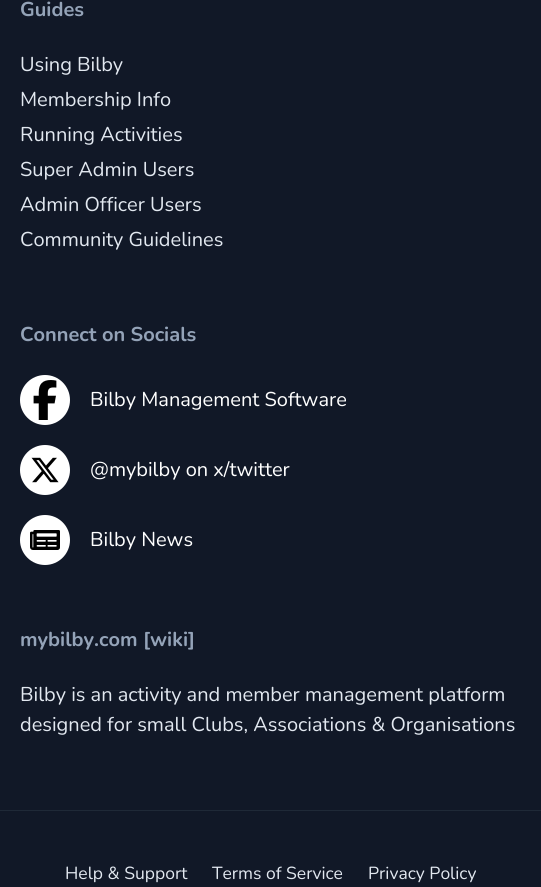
import math
import cairo

surface = cairo.ImageSurface(cairo.FORMAT_RGB24, 541, 887)
cr = cairo.Context(surface)
options = cairo.FontOptions()
options.set_hint_metrics(cairo.HINT_METRICS_OFF)
options.set_hint_style(cairo.HINT_STYLE_NONE)
cr.set_font_options(options)
cr.set_miter_limit(4)


def rgb(code):
    cr.set_source_rgb(*(v / 255 for v in bytes.fromhex(code[-6:])))


def image(path, x, y, w, h):
    cr.save()
    cr.set_source_surface(cairo.ImageSurface.create_from_png(path), x, y)
    cr.rectangle(x, y, w, h)
    cr.fill()
    cr.restore()


rgb("#111827")
cr.paint()
rgb("#ffffff")
cr.arc(45, 400, 25, 0, 2 * math.pi)
cr.fill()
image("img/1.png", 33, 380, 24, 40)
cr.arc(45, 470, 25, 0, 2 * math.pi)
cr.fill()
image("img/2.png", 31, 457, 28, 26)
cr.arc(45, 540, 25, 0, 2 * math.pi)
cr.fill()
image("img/3.png", 30, 530, 30, 20)
rgb("#1f2937")
cr.rectangle(0, 810, 541, 1)
cr.fill()
cr.select_font_face("Nunito", cairo.FONT_SLANT_NORMAL, cairo.FONT_WEIGHT_BOLD)
cr.set_font_size(20)
rgb("#94a3b8")
cr.move_to(20, 16)
cr.show_text("Guides")
cr.select_font_face("Nunito")
rgb("#e2e8f0")
for x, y, s in [
    (20, 71, "Using Bilby"),
    (20, 106, "Membership Info"),
    (20, 141, "Running Activities"),
    (20, 176, "Super Admin Users"),
    (20, 211, "Admin Officer Users"),
    (20, 246, "Community Guidelines"),
]:
    cr.move_to(x, y)
    cr.show_text(s)
cr.select_font_face("Nunito", cairo.FONT_SLANT_NORMAL, cairo.FONT_WEIGHT_BOLD)
rgb("#94a3b8")
cr.move_to(20, 341)
cr.show_text("Connect on Socials")
cr.select_font_face("Nunito")
rgb("#ffffff")
for x, y, s in [
    (90, 406, "Bilby Management Software"),
    (90, 476, "@mybilby on x/twitter"),
    (90, 546, "Bilby News"),
]:
    cr.move_to(x, y)
    cr.show_text(s)
cr.select_font_face("Nunito", cairo.FONT_SLANT_NORMAL, cairo.FONT_WEIGHT_BOLD)
rgb("#94a3b8")
cr.move_to(20, 646)
cr.show_text("mybilby.com [wiki]")
cr.select_font_face("Nunito")
rgb("#e2e8f0")
cr.move_to(20, 701)
cr.show_text("Bilby is an activity and member management platform")
cr.move_to(20, 731)
cr.show_text("designed for small Clubs, Associations & Organisations")
cr.set_font_size(17.5)
for x, y, s in [
    (65, 879, "Help & Support"),
    (212, 879, "Terms of Service"),
    (368, 879, "Privacy Policy"),
]:
    cr.move_to(x, y)
    cr.show_text(s)
surface.write_to_png("page.png")
